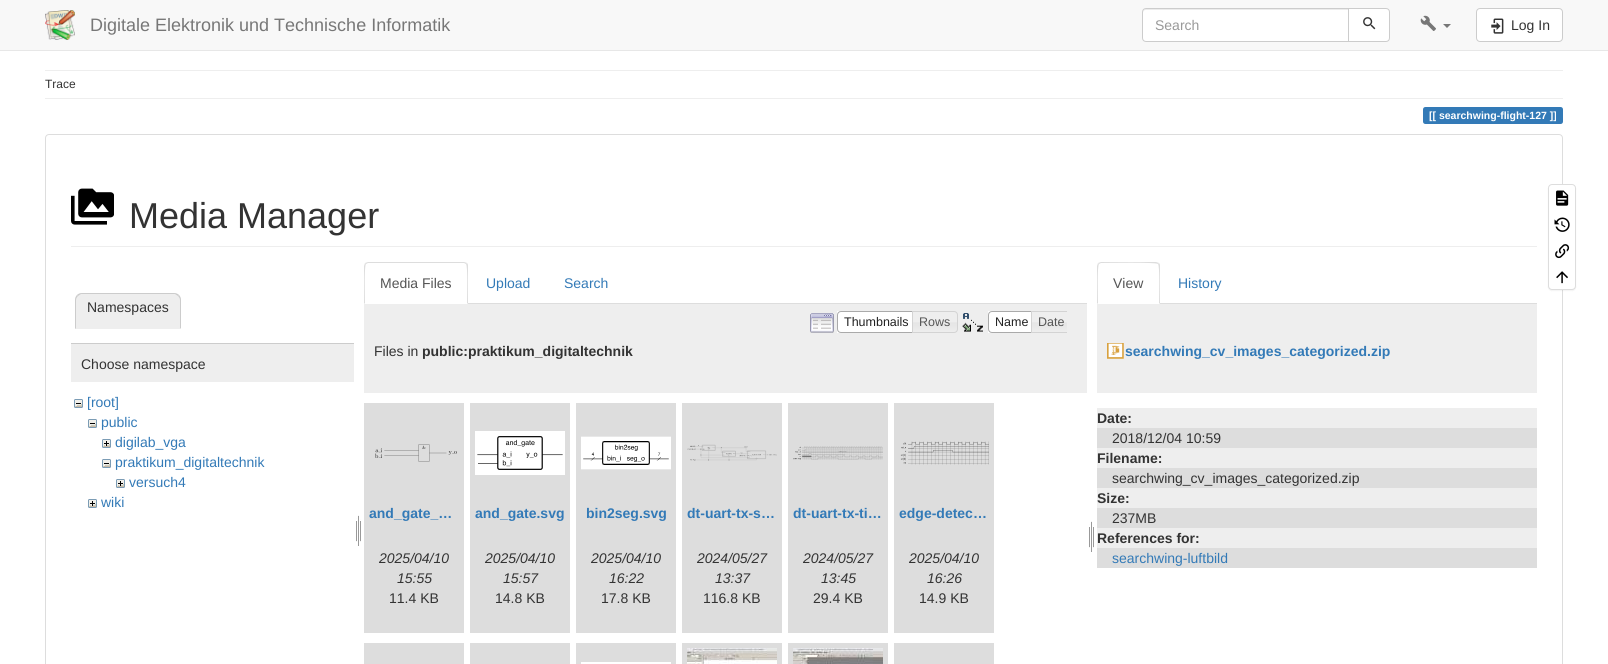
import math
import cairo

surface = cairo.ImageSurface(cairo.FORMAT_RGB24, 1608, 664)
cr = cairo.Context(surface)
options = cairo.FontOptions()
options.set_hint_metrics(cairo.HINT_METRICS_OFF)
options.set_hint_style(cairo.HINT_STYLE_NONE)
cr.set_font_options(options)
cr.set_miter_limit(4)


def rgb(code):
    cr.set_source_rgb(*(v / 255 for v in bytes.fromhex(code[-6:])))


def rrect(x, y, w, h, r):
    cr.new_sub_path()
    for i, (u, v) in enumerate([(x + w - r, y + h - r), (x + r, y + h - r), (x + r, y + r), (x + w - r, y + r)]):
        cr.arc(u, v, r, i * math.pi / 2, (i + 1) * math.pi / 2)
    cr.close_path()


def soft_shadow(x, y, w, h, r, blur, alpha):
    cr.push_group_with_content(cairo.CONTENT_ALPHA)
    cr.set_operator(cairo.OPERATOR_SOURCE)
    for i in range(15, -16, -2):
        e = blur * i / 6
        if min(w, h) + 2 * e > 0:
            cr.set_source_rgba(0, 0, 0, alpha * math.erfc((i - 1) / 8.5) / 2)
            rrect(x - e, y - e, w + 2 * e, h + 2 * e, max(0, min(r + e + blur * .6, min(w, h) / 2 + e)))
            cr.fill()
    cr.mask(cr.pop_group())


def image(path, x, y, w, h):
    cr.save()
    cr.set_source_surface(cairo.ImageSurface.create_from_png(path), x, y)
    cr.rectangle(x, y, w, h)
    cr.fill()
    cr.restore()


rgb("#ffffff")
cr.paint()
rgb("#f8f8f8")
cr.rectangle(0, 0, 1608, 50)
cr.fill()
rgb("#e7e7e7")
cr.rectangle(0, 50, 1608, 1)
cr.fill()
image("img/1.png", 45, 10, 30, 30)
rgb("#ffffff")
cr.new_path()
cr.move_to(1146, 8)
cr.line_to(1349, 8)
cr.line_to(1349, 42)
cr.line_to(1146, 42)
cr.curve_to(1144, 42, 1142, 40, 1142, 38)
cr.line_to(1142, 12)
cr.curve_to(1142, 10, 1144, 8, 1146, 8)
cr.close_path()
cr.fill()
rgb("#ececec")
cr.new_path()
cr.move_to(1146, 10)
cr.line_to(1348, 10)
cr.line_to(1348, 9)
cr.line_to(1145, 9)
cr.curve_to(1143, 10, 1143, 11, 1143, 13)
cr.curve_to(1143, 11, 1144, 10, 1146, 10)
cr.close_path()
cr.fill()
cr.new_path()
cr.move_to(1146, 8.5)
cr.line_to(1348.5, 8.5)
cr.line_to(1348.5, 41.5)
cr.line_to(1146, 41.5)
cr.curve_to(1144, 41.5, 1142.5, 40, 1142.5, 38)
cr.line_to(1142.5, 12)
cr.curve_to(1142.5, 10, 1144, 8.5, 1146, 8.5)
cr.close_path()
rgb("#cccccc")
cr.set_line_width(1)
cr.stroke()
rgb("#ffffff")
cr.new_path()
cr.move_to(1348.5, 8.5)
cr.line_to(1386, 8.5)
cr.curve_to(1388, 8.5, 1389.5, 10, 1389.5, 12)
cr.line_to(1389.5, 38)
cr.curve_to(1389.5, 40, 1388, 41.5, 1386, 41.5)
cr.line_to(1348.5, 41.5)
cr.close_path()
cr.fill_preserve()
rgb("#cccccc")
cr.stroke()
image("img/2.png", 1363, 17, 13, 13)
image("img/3.png", 1420, 15, 16, 16)
rgb("#777777")
cr.new_path()
cr.move_to(1443, 24)
cr.line_to(1451, 24)
cr.line_to(1447, 28)
cr.close_path()
cr.fill()
rgb("#ffffff")
rrect(1476.5, 8.5, 86, 33, 3.5)
cr.fill_preserve()
rgb("#cccccc")
cr.stroke()
image("img/4.png", 1491, 18, 13, 16)
rgb("#eeeeee")
cr.rectangle(45, 70, 1518, 1)
cr.fill()
cr.rectangle(45, 98, 1518, 1)
cr.fill()
rgb("#337ab7")
cr.new_path()
cr.move_to(1425.5, 107)
cr.line_to(1439, 107)
cr.line_to(1439, 124)
cr.line_to(1425.5, 124)
cr.curve_to(1424, 124, 1423, 123, 1423, 121.5)
cr.line_to(1423, 109.5)
cr.curve_to(1423, 108, 1424, 107, 1425.5, 107)
cr.close_path()
cr.fill()
cr.rectangle(1439, 107, 108, 17)
cr.fill()
cr.new_path()
cr.move_to(1547, 107)
cr.line_to(1560.5, 107)
cr.curve_to(1562, 107, 1563, 108, 1563, 109.5)
cr.line_to(1563, 121.5)
cr.curve_to(1563, 123, 1562, 124, 1560.5, 124)
cr.line_to(1547, 124)
cr.close_path()
cr.fill()
rrect(45.5, 134.5, 1517, 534, 3.5)
rgb("#dddddd")
cr.stroke()
rgb("#eeeeee")
cr.rectangle(71, 246, 1466, 1)
cr.fill()
image("img/5.png", 71, 188, 43, 37)
cr.new_path()
cr.move_to(82, 293)
cr.line_to(174, 293)
cr.curve_to(178, 293, 181, 296, 181, 300)
cr.line_to(181, 329)
cr.line_to(75, 329)
cr.line_to(75, 300)
cr.curve_to(75, 296, 78, 293, 82, 293)
cr.close_path()
cr.fill()
rgb("#cccccc")
cr.new_path()
cr.move_to(82, 293)
cr.curve_to(80, 293, 78, 294, 77, 295)
cr.line_to(78, 296)
cr.line_to(81, 294)
cr.line_to(175, 294)
cr.line_to(178, 296)
cr.line_to(179, 295)
cr.curve_to(178, 294, 176, 293, 174, 293)
cr.close_path()
cr.fill()
cr.new_path()
cr.move_to(181, 329)
cr.line_to(181, 300)
cr.curve_to(181, 298, 180, 296, 179, 295)
cr.line_to(178, 296)
cr.curve_to(179, 297, 180, 298.5, 180, 300)
cr.line_to(180, 328)
cr.close_path()
cr.fill()
rgb("#eeeeee")
cr.new_path()
cr.move_to(181, 329)
cr.line_to(180, 328)
cr.line_to(76, 328)
cr.line_to(75, 329)
cr.close_path()
cr.fill()
rgb("#cccccc")
cr.new_path()
cr.move_to(75, 329)
cr.line_to(76, 328)
cr.line_to(76, 300)
cr.curve_to(76, 298.5, 77, 297, 78, 296)
cr.line_to(77, 295)
cr.curve_to(76, 296, 75, 298, 75, 300)
cr.close_path()
cr.fill()
rgb("#eeeeee")
cr.rectangle(71, 344, 283, 38)
cr.fill()
rgb("#cccccc")
cr.rectangle(71, 343, 283, 1)
cr.fill()
image("img/6.png", 74, 399, 9, 9)
image("img/6.png", 88, 419, 9, 9)
image("img/7.png", 102, 439, 9, 9)
image("img/6.png", 102, 459, 9, 9)
image("img/7.png", 116, 479, 9, 9)
image("img/7.png", 88, 499, 9, 9)
image("img/8.png", 356, 515, 5, 31)
rgb("#dddddd")
cr.rectangle(468, 303, 619, 1)
cr.fill()
cr.new_path()
cr.move_to(368, 262)
cr.line_to(365, 263)
cr.line_to(366, 264)
cr.line_to(368, 263)
cr.line_to(464, 263)
cr.line_to(466, 264)
cr.line_to(467, 263)
cr.line_to(464, 262)
cr.close_path()
cr.fill()
cr.new_path()
cr.move_to(468, 304)
cr.line_to(468, 266)
cr.curve_to(468, 265, 468, 264, 467, 263)
cr.line_to(466, 264)
cr.curve_to(468, 266, 467, 298, 467, 303)
cr.close_path()
cr.fill()
cr.new_path()
cr.move_to(364, 304)
cr.line_to(365, 303)
cr.curve_to(365, 298, 364, 266, 366, 264)
cr.line_to(365, 263)
cr.line_to(364, 266)
cr.close_path()
cr.fill()
rgb("#eeeeee")
cr.rectangle(364, 304, 723, 89)
cr.fill()
image("img/9.png", 810, 313, 24, 20)
rgb("#ffffff")
cr.rectangle(837, 311, 75, 22)
cr.fill()
cr.new_path()
cr.move_to(841, 311.5)
cr.line_to(916.5, 311.5)
cr.line_to(916.5, 332.5)
cr.line_to(841, 332.5)
cr.curve_to(839, 332.5, 837.5, 331, 837.5, 329)
cr.line_to(837.5, 315)
cr.curve_to(837.5, 313, 839, 311.5, 841, 311.5)
cr.close_path()
rgb("#aaaaaa")
cr.stroke()
image("img/10.png", 913, 311, 45, 22)
cr.new_path()
cr.move_to(912.5, 311.5)
cr.line_to(954, 311.5)
cr.curve_to(956, 311.5, 957.5, 313, 957.5, 315)
cr.line_to(957.5, 329)
cr.curve_to(957.5, 331, 956, 332.5, 954, 332.5)
cr.line_to(912.5, 332.5)
cr.close_path()
rgb("#d3d3d3")
cr.stroke()
image("img/11.png", 962, 313, 21, 19)
rgb("#ffffff")
cr.rectangle(988, 311, 43, 22)
cr.fill()
cr.new_path()
cr.move_to(992, 311.5)
cr.line_to(1035.5, 311.5)
cr.line_to(1035.5, 332.5)
cr.line_to(992, 332.5)
cr.curve_to(990, 332.5, 988.5, 331, 988.5, 329)
cr.line_to(988.5, 315)
cr.curve_to(988.5, 313, 990, 311.5, 992, 311.5)
cr.close_path()
rgb("#aaaaaa")
cr.stroke()
image("img/12.png", 1032, 312, 35, 20)
cr.save()
cr.rectangle(802, 311, 265, 22)
cr.clip()
cr.new_path()
cr.move_to(1031.5, 311.5)
cr.line_to(1068, 311.5)
cr.curve_to(1070, 311.5, 1071.5, 313, 1071.5, 315)
cr.line_to(1071.5, 329)
cr.curve_to(1071.5, 331, 1070, 332.5, 1068, 332.5)
cr.line_to(1031.5, 332.5)
cr.close_path()
rgb("#d3d3d3")
cr.stroke()
cr.restore()
rgb("#dddddd")
cr.rectangle(364, 403, 100, 230)
cr.fill()
image("img/13.png", 375, 444, 82, 18)
cr.rectangle(470, 403, 100, 230)
cr.fill()
image("img/14.png", 475, 431, 90, 44)
cr.rectangle(576, 403, 100, 230)
cr.fill()
image("img/15.png", 581, 436, 90, 34)
cr.rectangle(682, 403, 100, 230)
cr.fill()
image("img/16.png", 687, 444, 90, 17)
cr.rectangle(788, 403, 100, 230)
cr.fill()
image("img/17.png", 793, 446, 90, 14)
cr.rectangle(894, 403, 100, 230)
cr.fill()
image("img/18.png", 900, 441, 89, 24)
for x, y, w, h, color in [
    (364, 643, 100, 21, "#dddddd"),
    (470, 643, 100, 21, "#dddddd"),
    (576, 643, 100, 21, "#dddddd"),
    (581, 662, 90, 2, "#ffffff"),
    (682, 643, 100, 21, "#dddddd"),
]:
    rgb(color)
    cr.rectangle(x, y, w, h)
    cr.fill()
image("img/19.png", 687, 648, 90, 16)
cr.rectangle(788, 643, 100, 21)
cr.fill()
image("img/20.png", 793, 648, 90, 16)
cr.rectangle(894, 643, 100, 21)
cr.fill()
image("img/8.png", 1089, 521, 5, 31)
cr.rectangle(1160, 303, 377, 1)
cr.fill()
cr.new_path()
cr.move_to(1101, 262)
cr.line_to(1098, 263)
cr.line_to(1099, 264)
cr.line_to(1101, 263)
cr.curve_to(1106, 263, 1156, 262, 1158, 264)
cr.line_to(1159, 263)
cr.line_to(1156, 262)
cr.close_path()
cr.fill()
cr.new_path()
cr.move_to(1160, 304)
cr.line_to(1160, 266)
cr.curve_to(1160, 265, 1160, 264, 1159, 263)
cr.line_to(1158, 264)
cr.curve_to(1160, 266, 1159, 298, 1159, 303)
cr.close_path()
cr.move_to(1097, 304)
cr.line_to(1098, 303)
cr.curve_to(1098, 298, 1097, 266, 1099, 264)
cr.line_to(1098, 263)
cr.line_to(1097, 266)
cr.close_path()
cr.fill()
rgb("#eeeeee")
cr.rectangle(1097, 304, 440, 89)
cr.fill()
image("img/21.png", 1107, 343, 17, 16)
for x, y, w, h, color in [
    (1097, 408, 440, 20, "#eeeeee"),
    (1097, 428, 440, 20, "#dddddd"),
    (1097, 448, 440, 20, "#eeeeee"),
    (1097, 468, 440, 20, "#dddddd"),
    (1097, 488, 440, 20, "#eeeeee"),
    (1097, 508, 440, 20, "#dddddd"),
    (1097, 528, 440, 20, "#eeeeee"),
    (1097, 548, 440, 20, "#dddddd"),
]:
    rgb(color)
    cr.rectangle(x, y, w, h)
    cr.fill()
rgb("#000000")
soft_shadow(1548, 185, 28, 106, 4, 0.5, 0.05)
rgb("#ffffff")
rrect(1548.5, 184.5, 27, 105, 3.5)
cr.fill_preserve()
rgb("#dddddd")
cr.stroke()
image("img/22.png", 1556, 190, 13, 16)
image("img/23.png", 1554, 217, 16, 15)
image("img/24.png", 1555, 244, 15, 15)
image("img/25.png", 1556, 271, 12, 13)
cr.select_font_face("Liberation Sans")
cr.set_font_size(18)
rgb("#777777")
cr.move_to(90, 31)
cr.show_text("Digitale Elektronik und Technische Informatik")
cr.set_font_size(14)
rgb("#999999")
cr.move_to(1155, 30)
cr.show_text("Search")
rgb("#333333")
cr.move_to(1511, 30)
cr.show_text("Log In")
cr.set_font_size(12)
cr.move_to(45, 88)
cr.show_text("Trace")
cr.select_font_face("Liberation Sans", cairo.FONT_SLANT_NORMAL, cairo.FONT_WEIGHT_BOLD)
cr.set_font_size(10.5)
rgb("#ffffff")
cr.move_to(1429, 119)
cr.show_text("[[ searchwing-flight-127 ]]")
cr.select_font_face("Liberation Sans")
cr.set_font_size(36)
rgb("#333333")
cr.move_to(129, 228)
cr.show_text("Media Manager")
cr.set_font_size(14)
cr.move_to(87, 312)
cr.show_text("Namespaces")
cr.move_to(81, 369)
cr.show_text("Choose namespace")
rgb("#337ab7")
for x, y, s in [
    (87, 407, "[root]"),
    (101, 427, "public"),
    (115, 447, "digilab_vga"),
    (115, 467, "praktikum_digitaltechnik"),
    (129, 487, "versuch4"),
    (101, 507, "wiki"),
]:
    cr.move_to(x, y)
    cr.show_text(s)
rgb("#555555")
cr.move_to(380, 288)
cr.show_text("Media Files")
rgb("#337ab7")
cr.move_to(486, 288)
cr.show_text("Upload")
cr.move_to(564, 288)
cr.show_text("Search")
cr.set_font_size(12.5)
rgb("#212121")
cr.move_to(844, 326)
cr.show_text("Thumbnails")
rgb("#555555")
cr.move_to(919, 326)
cr.show_text("Rows")
rgb("#212121")
cr.move_to(995, 326)
cr.show_text("Name")
rgb("#555555")
cr.move_to(1038, 326)
cr.show_text("Date")
cr.set_font_size(14)
rgb("#333333")
cr.move_to(374, 356)
cr.show_text("Files in")
cr.select_font_face("Liberation Sans", cairo.FONT_SLANT_NORMAL, cairo.FONT_WEIGHT_BOLD)
cr.move_to(422, 356)
cr.show_text("public:praktikum_digitaltechnik")
rgb("#337ab7")
cr.move_to(369, 518)
cr.show_text("and_gate_…")
cr.select_font_face("Liberation Sans", cairo.FONT_SLANT_ITALIC)
rgb("#333333")
cr.move_to(379, 563)
cr.show_text("2025/04/10")
cr.move_to(397, 583)
cr.show_text("15:55")
cr.select_font_face("Liberation Sans")
cr.move_to(389, 603)
cr.show_text("11.4 KB")
cr.select_font_face("Liberation Sans", cairo.FONT_SLANT_NORMAL, cairo.FONT_WEIGHT_BOLD)
rgb("#337ab7")
cr.move_to(475, 518)
cr.show_text("and_gate.svg")
cr.select_font_face("Liberation Sans", cairo.FONT_SLANT_ITALIC)
rgb("#333333")
cr.move_to(485, 563)
cr.show_text("2025/04/10")
cr.move_to(503, 583)
cr.show_text("15:57")
cr.select_font_face("Liberation Sans")
cr.move_to(495, 603)
cr.show_text("14.8 KB")
cr.select_font_face("Liberation Sans", cairo.FONT_SLANT_NORMAL, cairo.FONT_WEIGHT_BOLD)
rgb("#337ab7")
cr.move_to(586, 518)
cr.show_text("bin2seg.svg")
cr.select_font_face("Liberation Sans", cairo.FONT_SLANT_ITALIC)
rgb("#333333")
cr.move_to(591, 563)
cr.show_text("2025/04/10")
cr.move_to(609, 583)
cr.show_text("16:22")
cr.select_font_face("Liberation Sans")
cr.move_to(601, 603)
cr.show_text("17.8 KB")
cr.select_font_face("Liberation Sans", cairo.FONT_SLANT_NORMAL, cairo.FONT_WEIGHT_BOLD)
rgb("#337ab7")
cr.move_to(687, 518)
cr.show_text("dt-uart-tx-s…")
cr.select_font_face("Liberation Sans", cairo.FONT_SLANT_ITALIC)
rgb("#333333")
cr.move_to(697, 563)
cr.show_text("2024/05/27")
cr.move_to(715, 583)
cr.show_text("13:37")
cr.select_font_face("Liberation Sans")
cr.move_to(703, 603)
cr.show_text("116.8 KB")
cr.select_font_face("Liberation Sans", cairo.FONT_SLANT_NORMAL, cairo.FONT_WEIGHT_BOLD)
rgb("#337ab7")
cr.move_to(793, 518)
cr.show_text("dt-uart-tx-ti…")
cr.select_font_face("Liberation Sans", cairo.FONT_SLANT_ITALIC)
rgb("#333333")
cr.move_to(803, 563)
cr.show_text("2024/05/27")
cr.move_to(821, 583)
cr.show_text("13:45")
cr.select_font_face("Liberation Sans")
cr.move_to(813, 603)
cr.show_text("29.4 KB")
cr.select_font_face("Liberation Sans", cairo.FONT_SLANT_NORMAL, cairo.FONT_WEIGHT_BOLD)
rgb("#337ab7")
cr.move_to(899, 518)
cr.show_text("edge-detec…")
cr.select_font_face("Liberation Sans", cairo.FONT_SLANT_ITALIC)
rgb("#333333")
cr.move_to(909, 563)
cr.show_text("2025/04/10")
cr.move_to(927, 583)
cr.show_text("16:26")
cr.select_font_face("Liberation Sans")
cr.move_to(919, 603)
cr.show_text("14.9 KB")
rgb("#555555")
cr.move_to(1113, 288)
cr.show_text("View")
rgb("#337ab7")
cr.move_to(1178, 288)
cr.show_text("History")
cr.select_font_face("Liberation Sans", cairo.FONT_SLANT_NORMAL, cairo.FONT_WEIGHT_BOLD)
cr.move_to(1125, 356)
cr.show_text("searchwing_cv_images_categorized.zip")
rgb("#333333")
cr.move_to(1097, 423)
cr.show_text("Date:")
cr.select_font_face("Liberation Sans")
cr.move_to(1112, 443)
cr.show_text("2018/12/04 10:59")
cr.select_font_face("Liberation Sans", cairo.FONT_SLANT_NORMAL, cairo.FONT_WEIGHT_BOLD)
cr.move_to(1097, 463)
cr.show_text("Filename:")
cr.select_font_face("Liberation Sans")
cr.move_to(1112, 483)
cr.show_text("searchwing_cv_images_categorized.zip")
cr.select_font_face("Liberation Sans", cairo.FONT_SLANT_NORMAL, cairo.FONT_WEIGHT_BOLD)
cr.move_to(1097, 503)
cr.show_text("Size:")
cr.select_font_face("Liberation Sans")
cr.move_to(1112, 523)
cr.show_text("237MB")
cr.select_font_face("Liberation Sans", cairo.FONT_SLANT_NORMAL, cairo.FONT_WEIGHT_BOLD)
cr.move_to(1097, 543)
cr.show_text("References for:")
cr.select_font_face("Liberation Sans")
rgb("#337ab7")
cr.move_to(1112, 563)
cr.show_text("searchwing-luftbild")
surface.write_to_png("page.png")
